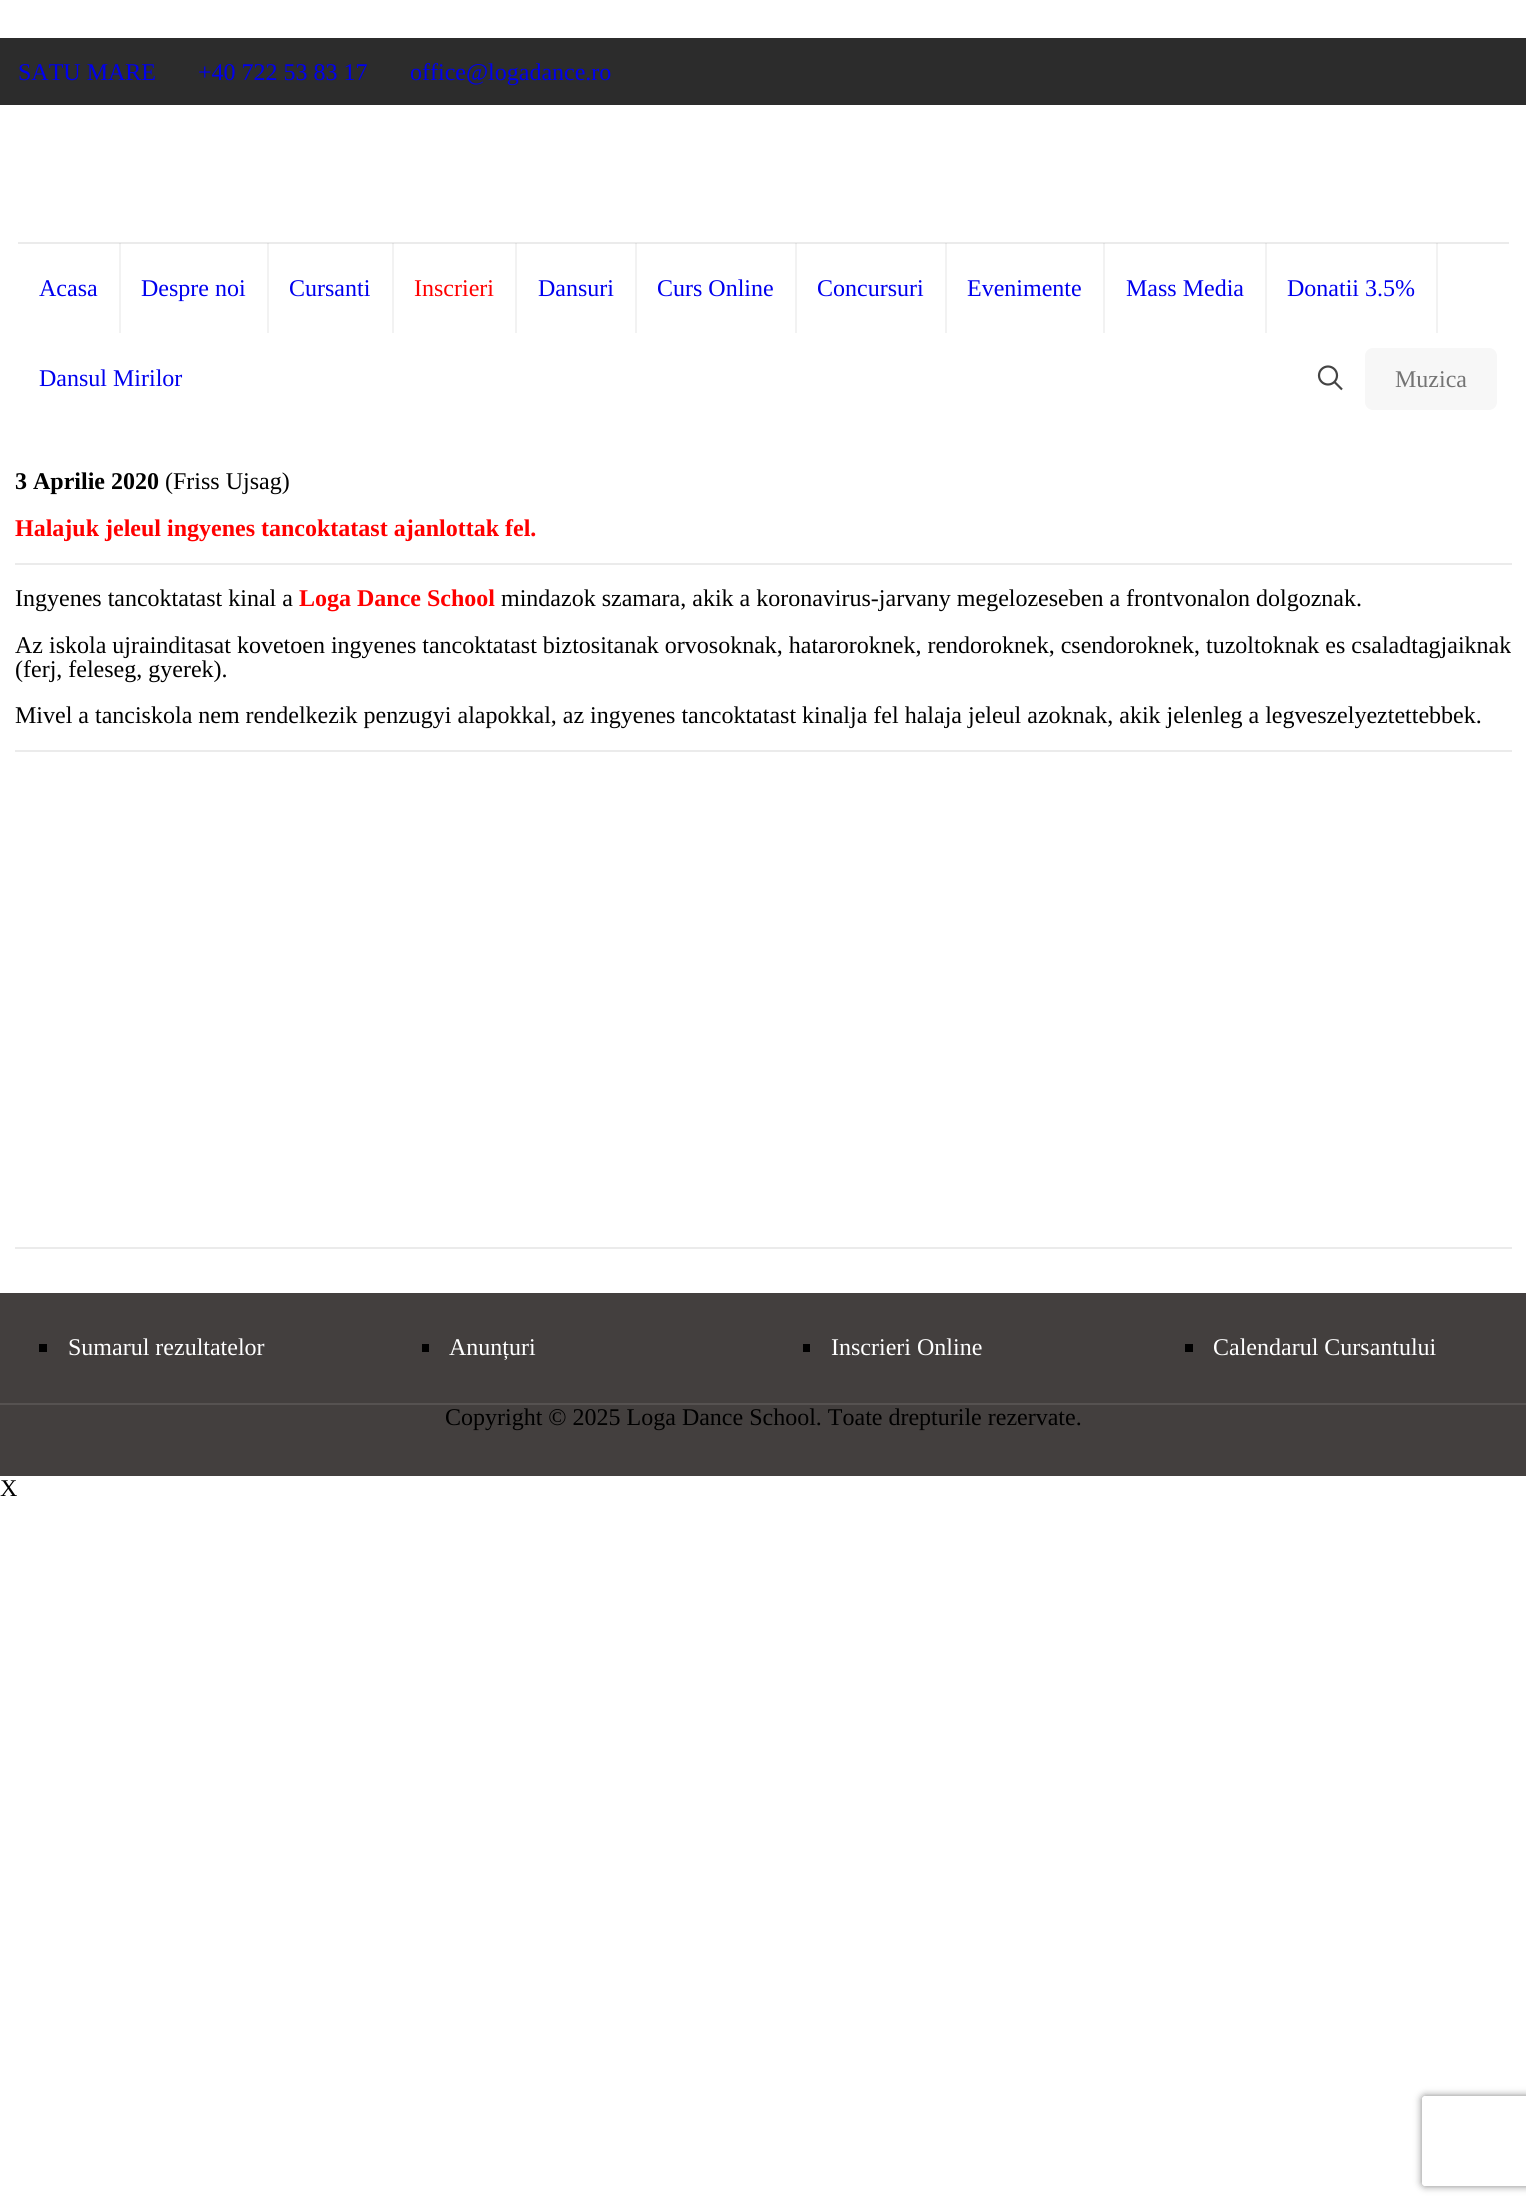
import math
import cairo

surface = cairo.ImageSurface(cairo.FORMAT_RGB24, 1526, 2206)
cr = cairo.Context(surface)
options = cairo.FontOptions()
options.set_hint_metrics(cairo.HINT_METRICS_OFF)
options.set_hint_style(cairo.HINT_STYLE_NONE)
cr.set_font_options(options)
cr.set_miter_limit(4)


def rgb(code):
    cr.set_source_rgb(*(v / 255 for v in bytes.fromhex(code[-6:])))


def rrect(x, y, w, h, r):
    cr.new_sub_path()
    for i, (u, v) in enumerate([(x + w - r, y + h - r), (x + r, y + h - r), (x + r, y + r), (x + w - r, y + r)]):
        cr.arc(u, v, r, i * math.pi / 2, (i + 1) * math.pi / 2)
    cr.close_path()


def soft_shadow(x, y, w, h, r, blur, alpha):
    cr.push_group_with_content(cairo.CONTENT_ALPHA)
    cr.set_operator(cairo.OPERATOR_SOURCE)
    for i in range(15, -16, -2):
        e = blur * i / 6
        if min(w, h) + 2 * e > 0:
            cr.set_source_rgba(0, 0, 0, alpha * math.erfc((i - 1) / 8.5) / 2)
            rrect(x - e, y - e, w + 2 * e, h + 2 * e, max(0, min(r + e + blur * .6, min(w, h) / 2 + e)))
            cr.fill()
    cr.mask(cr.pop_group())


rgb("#ffffff")
cr.paint()
for x, y, w, h, color in [
    (1436, 243, 2, 90, "#f2f2f2"),
    (1265, 243, 2, 90, "#f2f2f2"),
    (1103, 243, 2, 90, "#f2f2f2"),
    (945, 243, 2, 90, "#f2f2f2"),
    (795, 243, 2, 90, "#f2f2f2"),
    (635, 243, 2, 90, "#f2f2f2"),
    (515, 243, 2, 90, "#f2f2f2"),
    (392, 243, 2, 90, "#f2f2f2"),
    (267, 243, 2, 90, "#f2f2f2"),
    (119, 243, 2, 90, "#f2f2f2"),
    (0, 38, 1526, 67, "#2c2c2c"),
    (18, 242, 1491, 2, "#ebebeb"),
    (1436, 243, 2, 1, "#dfdfdf"),
    (1265, 243, 2, 1, "#dfdfdf"),
    (1103, 243, 2, 1, "#dfdfdf"),
    (945, 243, 2, 1, "#dfdfdf"),
    (795, 243, 2, 1, "#dfdfdf"),
    (635, 243, 2, 1, "#dfdfdf"),
    (515, 243, 2, 1, "#dfdfdf"),
    (392, 243, 2, 1, "#dfdfdf"),
    (267, 243, 2, 1, "#dfdfdf"),
    (119, 243, 2, 1, "#dfdfdf"),
]:
    rgb(color)
    cr.rectangle(x, y, w, h)
    cr.fill()
cr.arc(1328, 375.5, 9, 0, 2 * math.pi)
rgb("#444444")
cr.set_line_width(2.2)
cr.stroke()
cr.new_path()
cr.move_to(1334.5, 382)
cr.line_to(1342, 389.5)
cr.stroke()
rgb("#f7f7f7")
rrect(1365, 348, 132, 62, 8)
cr.fill()
for x, y, w, h, color in [
    (15, 563, 1497, 2, "#ebebeb"),
    (15, 750, 1497, 2, "#ebebeb"),
    (15, 1247, 1497, 2, "#ebebeb"),
    (0, 1293, 1526, 110, "#433f3e"),
    (39, 1344, 8, 8, "#000000"),
    (422, 1344, 7, 8, "#000000"),
    (803, 1344, 7, 8, "#000000"),
    (1185, 1344, 8, 8, "#000000"),
    (0, 1405, 1526, 71, "#433f3e"),
    (0, 1403, 1526, 2, "#565251"),
]:
    rgb(color)
    cr.rectangle(x, y, w, h)
    cr.fill()
cr.save()
cr.set_fill_rule(cairo.FILL_RULE_EVEN_ODD)
cr.new_path()
cr.move_to(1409, 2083)
cr.line_to(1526, 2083)
cr.line_to(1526, 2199)
cr.line_to(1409, 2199)
cr.close_path()
cr.move_to(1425, 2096)
cr.line_to(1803, 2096)
cr.curve_to(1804.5, 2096, 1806, 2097.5, 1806, 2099)
cr.line_to(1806, 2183)
cr.curve_to(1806, 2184.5, 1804.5, 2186, 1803, 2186)
cr.line_to(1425, 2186)
cr.curve_to(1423.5, 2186, 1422, 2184.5, 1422, 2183)
cr.line_to(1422, 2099)
cr.curve_to(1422, 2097.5, 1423.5, 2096, 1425, 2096)
cr.close_path()
cr.clip()
rgb("#808080")
soft_shadow(1422, 2096, 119, 90, 3, 4, 1)
cr.restore()
cr.select_font_face("Liberation Serif")
cr.set_font_size(24)
rgb("#0000ee")
for x, y, s in [
    (18, 80, "SATU MARE"),
    (198, 80, "+40 722 53 83 17"),
    (410, 80, "office@logadance.ro"),
    (39, 296, "Acasa"),
    (141, 296, "Despre noi"),
    (289, 296, "Cursanti"),
]:
    cr.move_to(x, y)
    cr.show_text(s)
rgb("#ff0000")
cr.move_to(414, 296)
cr.show_text("Inscrieri")
rgb("#0000ee")
for x, y, s in [
    (538, 296, "Dansuri"),
    (657, 296, "Curs Online"),
    (817, 296, "Concursuri"),
    (967, 296, "Evenimente"),
    (1126, 296, "Mass Media"),
    (1287, 296, "Donatii 3.5%"),
    (39, 386, "Dansul Mirilor"),
]:
    cr.move_to(x, y)
    cr.show_text(s)
rgb("#747474")
cr.move_to(1395, 387)
cr.show_text("Muzica")
cr.select_font_face("Liberation Serif", cairo.FONT_SLANT_NORMAL, cairo.FONT_WEIGHT_BOLD)
rgb("#000000")
cr.move_to(15, 489)
cr.show_text("3 Aprilie 2020")
cr.select_font_face("Liberation Serif")
cr.move_to(165, 489)
cr.show_text("(Friss Ujsag)")
cr.select_font_face("Liberation Serif", cairo.FONT_SLANT_NORMAL, cairo.FONT_WEIGHT_BOLD)
rgb("#ff0000")
cr.move_to(15, 536)
cr.show_text("Halajuk jeleul ingyenes tancoktatast ajanlottak fel.")
cr.select_font_face("Liberation Serif")
rgb("#000000")
cr.move_to(15, 606)
cr.show_text("Ingyenes tancoktatast kinal a")
cr.select_font_face("Liberation Serif", cairo.FONT_SLANT_NORMAL, cairo.FONT_WEIGHT_BOLD)
rgb("#ff0000")
cr.move_to(299, 606)
cr.show_text("Loga Dance School")
cr.select_font_face("Liberation Serif")
rgb("#000000")
for x, y, s in [
    (501, 606, "mindazok szamara, akik a koronavirus-jarvany megelozeseben a frontvonalon dolgoznak."),
    (15, 653, "Az iskola ujrainditasat kovetoen ingyenes tancoktatast biztositanak orvosoknak, hataroroknek, rendoroknek, csendoroknek, tuzoltoknak es csaladtagjaiknak"),
    (15, 677, "(ferj, feleseg, gyerek)."),
    (15, 723, "Mivel a tanciskola nem rendelkezik penzugyi alapokkal, az ingyenes tancoktatast kinalja fel halaja jeleul azoknak, akik jelenleg a legveszelyeztettebbek."),
]:
    cr.move_to(x, y)
    cr.show_text(s)
rgb("#ffffff")
for x, y, s in [
    (68, 1355, "Sumarul rezultatelor"),
    (449, 1355, "Anunțuri"),
    (831, 1355, "Inscrieri Online"),
    (1213, 1355, "Calendarul Cursantului"),
]:
    cr.move_to(x, y)
    cr.show_text(s)
rgb("#000000")
cr.move_to(445, 1425)
cr.show_text("Copyright © 2025 Loga Dance School. Toate drepturile rezervate.")
cr.move_to(0, 1496)
cr.show_text("X")
surface.write_to_png("page.png")
